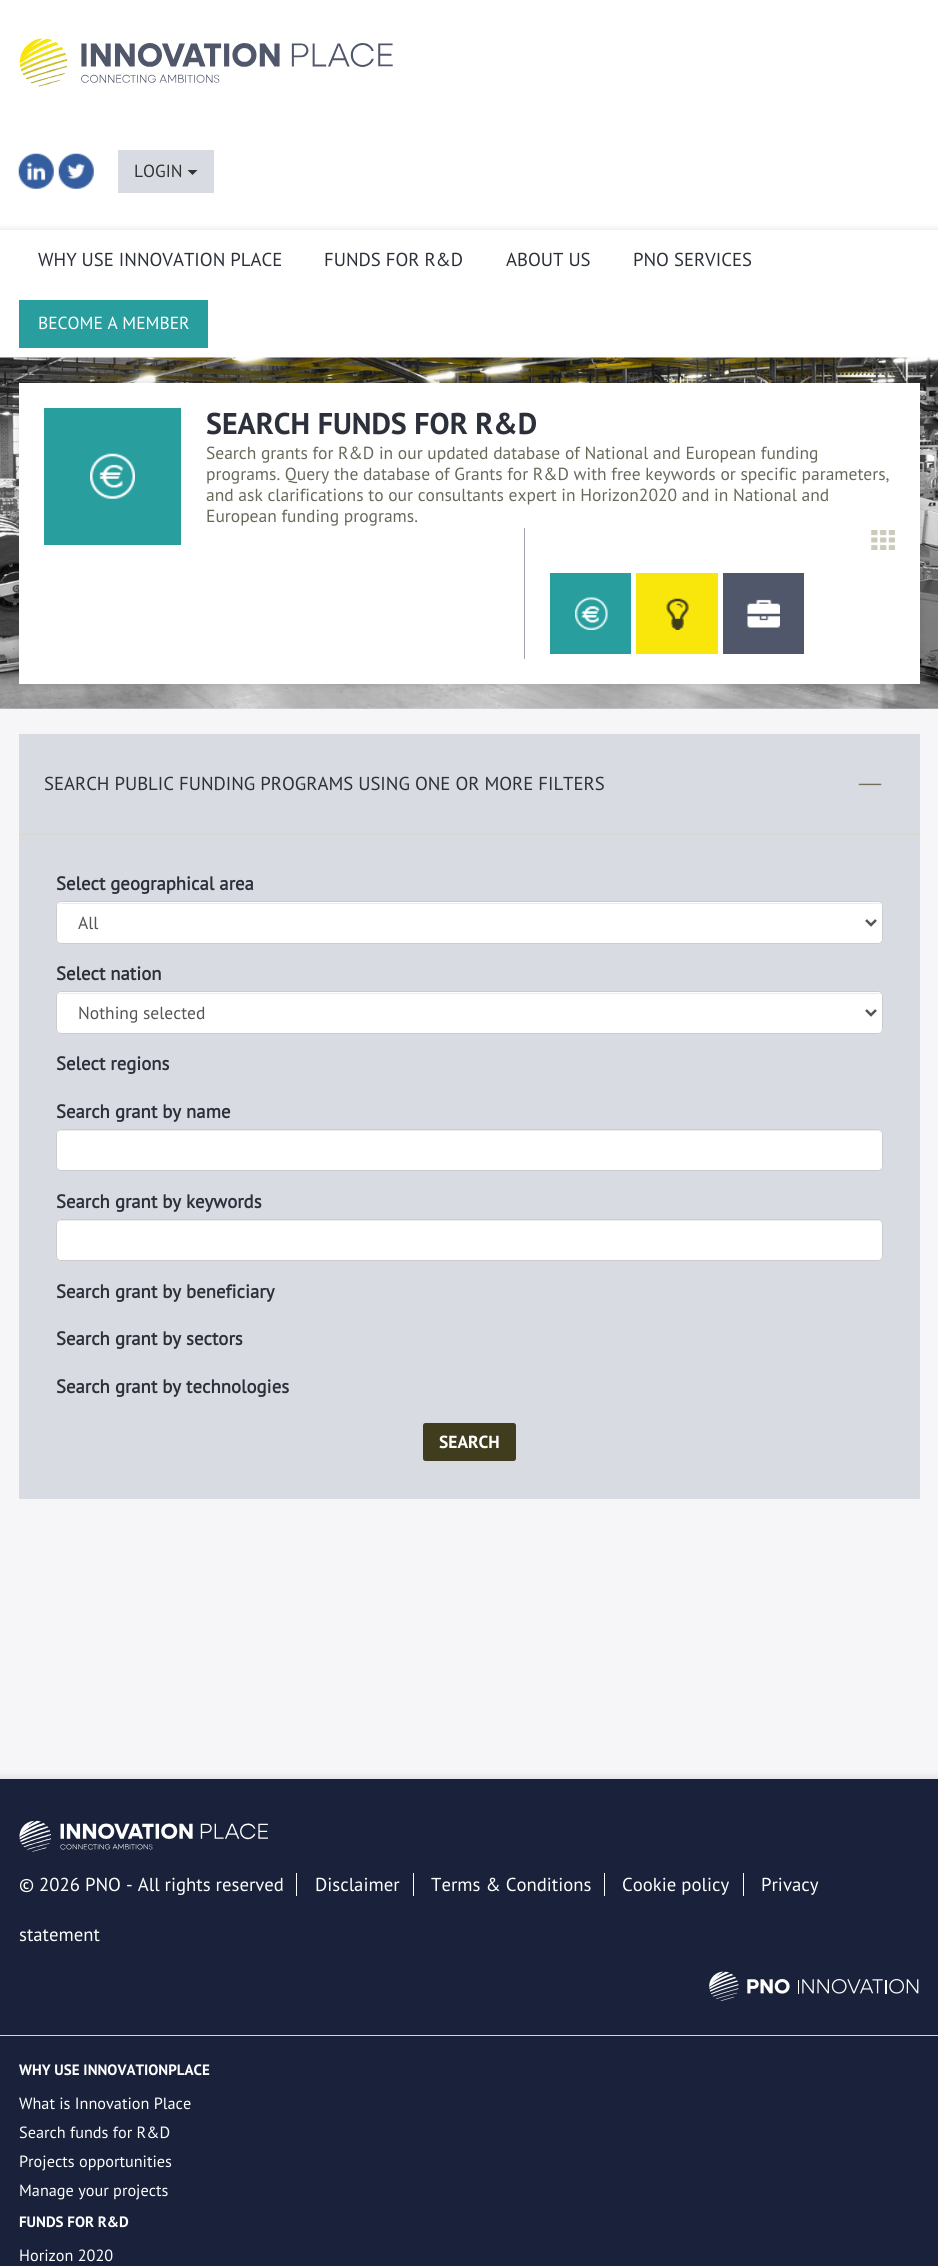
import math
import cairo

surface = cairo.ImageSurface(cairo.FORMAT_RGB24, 938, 2266)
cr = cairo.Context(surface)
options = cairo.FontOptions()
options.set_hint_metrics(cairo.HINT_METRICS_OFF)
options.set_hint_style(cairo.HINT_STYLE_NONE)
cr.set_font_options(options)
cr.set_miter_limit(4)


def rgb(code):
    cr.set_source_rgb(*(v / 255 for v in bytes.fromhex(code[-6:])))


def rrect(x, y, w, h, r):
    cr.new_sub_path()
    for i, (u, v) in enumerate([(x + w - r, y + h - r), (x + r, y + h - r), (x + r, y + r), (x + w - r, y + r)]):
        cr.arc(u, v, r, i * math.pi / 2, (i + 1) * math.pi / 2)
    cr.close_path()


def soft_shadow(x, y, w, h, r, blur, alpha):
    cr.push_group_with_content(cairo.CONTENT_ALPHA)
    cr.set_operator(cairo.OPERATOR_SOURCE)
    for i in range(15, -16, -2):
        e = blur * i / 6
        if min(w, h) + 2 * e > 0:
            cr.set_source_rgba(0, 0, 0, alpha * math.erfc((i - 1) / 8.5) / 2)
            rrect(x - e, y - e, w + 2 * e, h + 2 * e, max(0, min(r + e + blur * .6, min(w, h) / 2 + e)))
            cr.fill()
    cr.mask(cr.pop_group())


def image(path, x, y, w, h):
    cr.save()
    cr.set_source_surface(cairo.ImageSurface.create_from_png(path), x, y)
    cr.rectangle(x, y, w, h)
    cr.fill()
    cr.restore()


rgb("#f6f6f8")
cr.paint()
rgb("#ffffff")
cr.rectangle(0, 0, 938, 230)
cr.fill()
image("img/1.png", 19, 38, 374, 49)
image("img/2.png", 18, 153, 36, 36)
image("img/3.png", 58, 153, 36, 36)
rgb("#d9dbe2")
cr.rectangle(118, 150, 96, 43)
cr.fill()
rgb("#333333")
cr.new_path()
cr.move_to(187.5, 170)
cr.line_to(197.5, 170)
cr.line_to(192.5, 175)
cr.close_path()
cr.fill()
rgb("#323232")
soft_shadow(-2, 228, 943, 132, 0, 3, 0.1)
rgb("#ffffff")
cr.rectangle(0, 230, 938, 128)
cr.fill()
rgb("#289e9f")
cr.rectangle(19, 300, 189, 48)
cr.fill()
image("img/4.png", 0, 357, 938, 352)
rgb("#323232")
soft_shadow(16, 380, 907, 306, 0, 3, 0.1)
rgb("#ffffff")
cr.rectangle(19, 383, 901, 301)
cr.fill()
rgb("#289e9f")
cr.rectangle(44, 408, 137, 137)
cr.fill()
image("img/5.png", 90, 453, 45, 46)
rgb("#9fa3b5")
cr.rectangle(524, 528, 1, 131)
cr.fill()
image("img/6.png", 871, 530, 24, 20)
rgb("#289e9f")
cr.rectangle(550, 573, 81, 81)
cr.fill()
image("img/7.png", 575, 597, 33, 33)
rgb("#f9e60b")
cr.rectangle(636, 573, 82, 81)
cr.fill()
image("img/8.png", 666, 598, 23, 32)
rgb("#51576b")
cr.rectangle(723, 573, 81, 81)
cr.fill()
image("img/9.png", 747, 599, 33, 29)
rgb("#d9dbe2")
cr.rectangle(19, 734, 901, 765)
cr.fill()
rgb("#d8d7cb")
cr.rectangle(19, 834, 901, 1)
cr.fill()
image("img/10.png", 858, 783, 24, 3)
rgb("#ffffff")
rrect(56, 901, 827, 43, 5)
cr.fill()
rgb("#ececec")
cr.new_path()
cr.move_to(61, 904)
cr.line_to(878, 904)
cr.curve_to(880, 904, 881, 905, 881, 908)
cr.curve_to(881, 905, 880, 903, 877, 903)
cr.line_to(62, 903)
cr.curve_to(59, 903, 58, 905, 58, 908)
cr.curve_to(58, 905, 59, 904, 61, 904)
cr.close_path()
cr.fill()
rrect(56.5, 901.5, 826, 42, 4.5)
rgb("#cccccc")
cr.set_line_width(1)
cr.stroke()
cr.new_path()
cr.move_to(866, 920)
cr.line_to(871, 925)
cr.line_to(876, 920)
rgb("#555555")
cr.set_line_width(2.5)
cr.stroke()
rgb("#ffffff")
rrect(56, 991, 827, 43, 5)
cr.fill()
rgb("#ececec")
cr.new_path()
cr.move_to(61, 994)
cr.line_to(878, 994)
cr.curve_to(880, 994, 881, 995, 881, 998)
cr.curve_to(881, 995, 880, 993, 877, 993)
cr.line_to(62, 993)
cr.curve_to(59, 993, 58, 995, 58, 998)
cr.curve_to(58, 995, 59, 994, 61, 994)
cr.close_path()
cr.fill()
rrect(56.5, 991.5, 826, 42, 4.5)
rgb("#cccccc")
cr.set_line_width(1)
cr.stroke()
cr.new_path()
cr.move_to(866, 1010)
cr.line_to(871, 1015)
cr.line_to(876, 1010)
rgb("#555555")
cr.set_line_width(2.5)
cr.stroke()
rgb("#ffffff")
rrect(56, 1129, 827, 42, 5)
cr.fill()
rgb("#ececec")
cr.new_path()
cr.move_to(61, 1131)
cr.line_to(878, 1131)
cr.curve_to(880, 1131, 881, 1133, 881, 1135)
cr.curve_to(881, 1132, 880, 1130, 877, 1130)
cr.line_to(62, 1130)
cr.curve_to(59, 1130, 58, 1132, 58, 1135)
cr.curve_to(58, 1133, 59, 1131, 61, 1131)
cr.close_path()
cr.fill()
rrect(56.5, 1129.5, 826, 41, 4.5)
rgb("#cccccc")
cr.set_line_width(1)
cr.stroke()
rgb("#ffffff")
rrect(56, 1219, 827, 42, 5)
cr.fill()
rgb("#ececec")
cr.new_path()
cr.move_to(61, 1221)
cr.line_to(878, 1221)
cr.curve_to(880, 1221, 881, 1223, 881, 1225)
cr.curve_to(881, 1222, 880, 1220, 877, 1220)
cr.line_to(62, 1220)
cr.curve_to(59, 1220, 58, 1222, 58, 1225)
cr.curve_to(58, 1223, 59, 1221, 61, 1221)
cr.close_path()
cr.fill()
rrect(56.5, 1219.5, 826, 41, 4.5)
rgb("#cccccc")
cr.stroke()
rgb("#403d1f")
rrect(423, 1423, 93, 38, 2.5)
cr.fill()
rgb("#323232")
soft_shadow(0, 1776, 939, 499, 0, 3, 0.1)
rgb("#19223a")
cr.rectangle(0, 1779, 938, 487)
cr.fill()
rgb("#d8d7cb")
cr.rectangle(0, 2035, 938, 1)
cr.fill()
image("img/11.png", 19, 1820, 249, 32)
for x, y, w, h, color in [
    (296, 1873, 1, 23, "#ffffff"),
    (413, 1873, 1, 23, "#ffffff"),
    (604, 1873, 1, 23, "#ffffff"),
    (743, 1873, 1, 23, "#ffffff"),
]:
    rgb(color)
    cr.rectangle(x, y, w, h)
    cr.fill()
image("img/12.png", 709, 1971, 210, 30)
cr.select_font_face("PT Sans")
cr.set_font_size(17.5)
rgb("#333333")
cr.move_to(134, 177)
cr.show_text("LOGIN")
cr.set_font_size(18.75)
rgb("#2c303b")
for x, y, s in [
    (38, 266, "WHY USE INNOVATION PLACE"),
    (324, 266, "FUNDS FOR R&D"),
    (506, 266, "ABOUT US"),
    (633, 266, "PNO SERVICES"),
]:
    cr.move_to(x, y)
    cr.show_text(s)
cr.set_font_size(17.5)
rgb("#ffffff")
cr.move_to(38, 329)
cr.show_text("BECOME A MEMBER")
cr.select_font_face("PT Sans", cairo.FONT_SLANT_NORMAL, cairo.FONT_WEIGHT_BOLD)
cr.set_font_size(30)
rgb("#2c303b")
cr.move_to(206, 434)
cr.show_text("SEARCH FUNDS FOR R&D")
cr.select_font_face("PT Sans")
cr.set_font_size(17.5)
rgb("#69685b")
for x, y, s in [
    (206, 459, "Search grants for R&D in our updated database of National and European funding"),
    (206, 480, "programs. Query the database of Grants for R&D with free keywords or specific parameters,"),
    (206, 501, "and ask clarifications to our consultants expert in Horizon2020 and in National and"),
    (206, 522, "European funding programs."),
]:
    cr.move_to(x, y)
    cr.show_text(s)
cr.set_font_size(18.75)
rgb("#2c303b")
cr.move_to(44, 790)
cr.show_text("SEARCH PUBLIC FUNDING PROGRAMS USING ONE OR MORE FILTERS")
cr.select_font_face("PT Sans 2", cairo.FONT_SLANT_NORMAL, cairo.FONT_WEIGHT_BOLD)
cr.move_to(56, 890)
cr.show_text("Select geographical area")
cr.select_font_face("PT Sans")
cr.set_font_size(17.5)
rgb("#555555")
cr.move_to(78, 929)
cr.show_text("All")
cr.select_font_face("PT Sans 2", cairo.FONT_SLANT_NORMAL, cairo.FONT_WEIGHT_BOLD)
cr.set_font_size(18.75)
rgb("#2c303b")
cr.move_to(56, 980)
cr.show_text("Select nation")
cr.select_font_face("PT Sans")
cr.set_font_size(17.5)
rgb("#555555")
cr.move_to(78, 1019)
cr.show_text("Nothing selected")
cr.select_font_face("PT Sans 2", cairo.FONT_SLANT_NORMAL, cairo.FONT_WEIGHT_BOLD)
cr.set_font_size(18.75)
rgb("#2c303b")
for x, y, s in [
    (56, 1070, "Select regions"),
    (56, 1118, "Search grant by name"),
    (56, 1208, "Search grant by keywords"),
    (56, 1298, "Search grant by beneficiary"),
    (56, 1345, "Search grant by sectors"),
    (56, 1393, "Search grant by technologies"),
]:
    cr.move_to(x, y)
    cr.show_text(s)
cr.select_font_face("PT Sans", cairo.FONT_SLANT_NORMAL, cairo.FONT_WEIGHT_BOLD)
cr.set_font_size(17.5)
rgb("#ffffff")
cr.move_to(439, 1448)
cr.show_text("SEARCH")
cr.select_font_face("PT Sans")
cr.set_font_size(18.75)
for x, y, s in [
    (19, 1891, "© 2026 PNO - All rights reserved"),
    (315, 1891, "Disclaimer"),
    (431, 1891, "Terms & Conditions"),
    (622, 1891, "Cookie policy"),
    (761, 1891, "Privacy"),
    (19, 1941, "statement"),
]:
    cr.move_to(x, y)
    cr.show_text(s)
cr.select_font_face("PT Sans", cairo.FONT_SLANT_NORMAL, cairo.FONT_WEIGHT_BOLD)
cr.set_font_size(15)
cr.move_to(19, 2075)
cr.show_text("WHY USE INNOVATIONPLACE")
cr.select_font_face("PT Sans")
cr.set_font_size(16.25)
for x, y, s in [
    (19, 2109, "What is Innovation Place"),
    (19, 2138, "Search funds for R&D"),
    (19, 2167, "Projects opportunities"),
    (19, 2196, "Manage your projects"),
]:
    cr.move_to(x, y)
    cr.show_text(s)
cr.select_font_face("PT Sans", cairo.FONT_SLANT_NORMAL, cairo.FONT_WEIGHT_BOLD)
cr.set_font_size(15)
cr.move_to(19, 2227)
cr.show_text("FUNDS FOR R&D")
cr.select_font_face("PT Sans")
cr.set_font_size(16.25)
cr.move_to(19, 2261)
cr.show_text("Horizon 2020")
surface.write_to_png("page.png")
